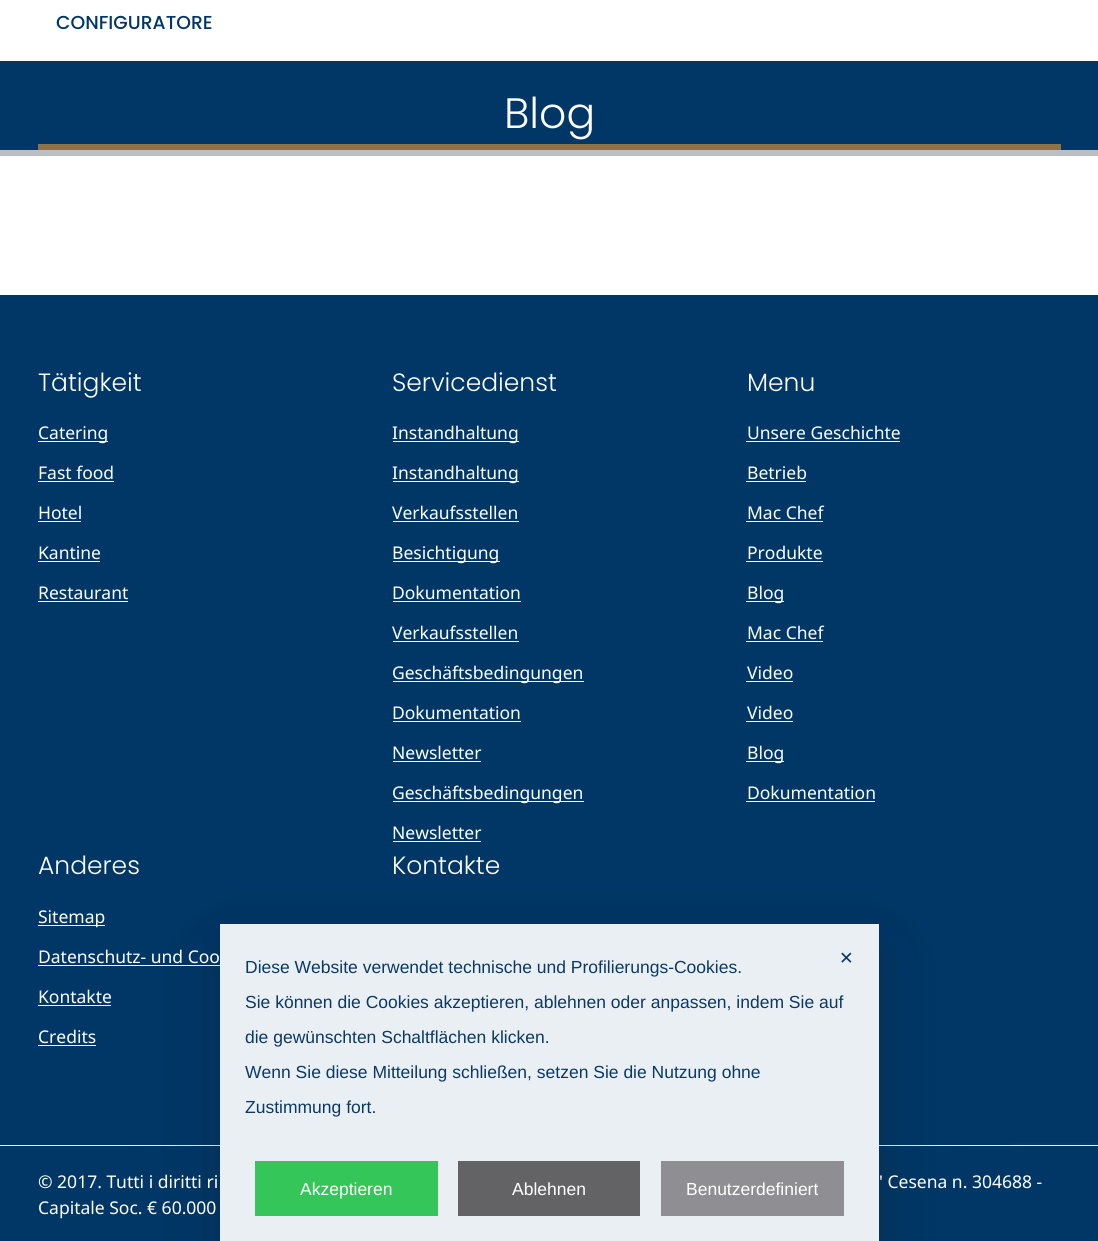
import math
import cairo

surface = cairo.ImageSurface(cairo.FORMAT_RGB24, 1098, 1241)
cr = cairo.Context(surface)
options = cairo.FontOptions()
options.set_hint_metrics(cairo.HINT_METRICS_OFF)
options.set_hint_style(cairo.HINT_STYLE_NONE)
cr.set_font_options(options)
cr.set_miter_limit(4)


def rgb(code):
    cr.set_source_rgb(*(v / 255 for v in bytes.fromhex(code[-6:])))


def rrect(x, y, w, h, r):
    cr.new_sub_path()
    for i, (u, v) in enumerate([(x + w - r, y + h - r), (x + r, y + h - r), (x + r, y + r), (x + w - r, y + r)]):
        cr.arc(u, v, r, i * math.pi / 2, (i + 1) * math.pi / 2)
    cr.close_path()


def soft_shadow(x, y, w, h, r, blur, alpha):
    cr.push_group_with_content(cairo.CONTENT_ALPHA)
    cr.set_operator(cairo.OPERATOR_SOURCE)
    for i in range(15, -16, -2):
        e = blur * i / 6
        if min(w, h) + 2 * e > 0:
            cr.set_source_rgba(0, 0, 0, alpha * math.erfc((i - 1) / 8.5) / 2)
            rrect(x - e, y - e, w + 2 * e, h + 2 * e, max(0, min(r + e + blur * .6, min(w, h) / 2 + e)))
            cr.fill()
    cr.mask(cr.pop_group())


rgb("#ffffff")
cr.paint()
for x, y, w, h, color in [
    (0, 61, 1098, 89, "#003767"),
    (38, 144, 1023, 6, "#8d7249"),
    (0, 150, 1098, 6, "#bbbfc3"),
    (0, 295, 1098, 850, "#003767"),
    (38, 441, 70, 1, "#ffffff"),
    (38, 481, 76, 1, "#ffffff"),
    (38, 521, 43, 1, "#ffffff"),
    (38, 561, 62, 1, "#ffffff"),
    (38, 601, 90, 1, "#ffffff"),
    (393, 441, 126, 1, "#ffffff"),
    (393, 481, 126, 1, "#ffffff"),
    (393, 521, 126, 1, "#ffffff"),
    (393, 561, 107, 1, "#ffffff"),
    (393, 601, 128, 1, "#ffffff"),
    (393, 641, 126, 1, "#ffffff"),
    (393, 681, 191, 1, "#ffffff"),
    (393, 721, 128, 1, "#ffffff"),
    (393, 761, 88, 1, "#ffffff"),
    (393, 801, 191, 1, "#ffffff"),
    (393, 841, 88, 1, "#ffffff"),
    (746, 441, 154, 1, "#ffffff"),
    (746, 481, 60, 1, "#ffffff"),
    (746, 521, 77, 1, "#ffffff"),
    (746, 561, 77, 1, "#ffffff"),
    (746, 601, 38, 1, "#ffffff"),
    (746, 641, 77, 1, "#ffffff"),
    (746, 681, 47, 1, "#ffffff"),
    (746, 721, 47, 1, "#ffffff"),
    (746, 761, 38, 1, "#ffffff"),
    (746, 801, 129, 1, "#ffffff"),
    (38, 925, 67, 1, "#ffffff"),
    (38, 965, 182, 1, "#ffffff"),
    (38, 1005, 73, 1, "#ffffff"),
    (38, 1045, 58, 1, "#ffffff"),
]:
    rgb(color)
    cr.rectangle(x, y, w, h)
    cr.fill()
rgb("#808080")
soft_shadow(1011, 1149, 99, 75, 2.5, 3, 1)
rgb("#003767")
cr.rectangle(0, 1146, 1098, 95)
cr.fill()
rgb("#eaeff3")
cr.rectangle(0, 1145, 1098, 1)
cr.fill()
rgb("#11111a")
soft_shadow(220, 954, 659, 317, 0, 50, 0.1)
soft_shadow(220, 944, 659, 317, 0, 35, 0.1)
soft_shadow(220, 934, 659, 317, 0, 15, 0.1)
for x, y, w, h, color in [
    (220, 924, 659, 317, "#eaeff3"),
    (255, 1161, 183, 55, "#34c659"),
    (458, 1161, 182, 55, "#636366"),
    (661, 1161, 183, 55, "#8e8e93"),
]:
    rgb(color)
    cr.rectangle(x, y, w, h)
    cr.fill()
cr.select_font_face("Poppins Medium")
cr.set_font_size(18.75)
rgb("#003768")
cr.move_to(56, 29)
cr.show_text("CONFIGURATORE")
cr.select_font_face("Poppins Light")
cr.set_font_size(42.5)
rgb("#ffffff")
cr.move_to(504, 128)
cr.show_text("Blog")
cr.set_font_size(25)
cr.move_to(38, 391)
cr.show_text("Tätigkeit")
cr.select_font_face("Noto Sans")
cr.set_font_size(17.5)
for x, y, s in [
    (38, 439, "Catering"),
    (38, 479, "Fast food"),
    (38, 519, "Hotel"),
    (38, 559, "Kantine"),
    (38, 599, "Restaurant"),
]:
    cr.move_to(x, y)
    cr.show_text(s)
cr.select_font_face("Poppins Light")
cr.set_font_size(25)
cr.move_to(392, 391)
cr.show_text("Servicedienst")
cr.select_font_face("Noto Sans")
cr.set_font_size(17.5)
for x, y, s in [
    (392, 439, "Instandhaltung"),
    (392, 479, "Instandhaltung"),
    (392, 519, "Verkaufsstellen"),
    (392, 559, "Besichtigung"),
    (392, 599, "Dokumentation"),
    (392, 639, "Verkaufsstellen"),
    (392, 679, "Geschäftsbedingungen"),
    (392, 719, "Dokumentation"),
    (392, 759, "Newsletter"),
    (392, 799, "Geschäftsbedingungen"),
    (392, 839, "Newsletter"),
]:
    cr.move_to(x, y)
    cr.show_text(s)
cr.select_font_face("Poppins Light")
cr.set_font_size(25)
cr.move_to(747, 391)
cr.show_text("Menu")
cr.select_font_face("Noto Sans")
cr.set_font_size(17.5)
for x, y, s in [
    (747, 439, "Unsere Geschichte"),
    (747, 479, "Betrieb"),
    (747, 519, "Mac Chef"),
    (747, 559, "Produkte"),
    (747, 599, "Blog"),
    (747, 639, "Mac Chef"),
    (747, 679, "Video"),
    (747, 719, "Video"),
    (747, 759, "Blog"),
    (747, 799, "Dokumentation"),
]:
    cr.move_to(x, y)
    cr.show_text(s)
cr.select_font_face("Poppins Light")
cr.set_font_size(25)
cr.move_to(38, 874)
cr.show_text("Anderes")
cr.select_font_face("Noto Sans")
cr.set_font_size(17.5)
for x, y, s in [
    (38, 923, "Sitemap"),
    (38, 963, "Datenschutz- und Coo"),
    (38, 1003, "Kontakte"),
    (38, 1043, "Credits"),
]:
    cr.move_to(x, y)
    cr.show_text(s)
cr.select_font_face("Poppins Light")
cr.set_font_size(25)
cr.move_to(392, 874)
cr.show_text("Kontakte")
cr.select_font_face("Noto Sans")
cr.set_font_size(17.5)
for x, y, s in [
    (38, 1188, "© 2017. Tutti i diritti ri"),
    (879, 1188, "' Cesena n. 304688 -"),
    (38, 1214, "Capitale Soc. € 60.000"),
]:
    cr.move_to(x, y)
    cr.show_text(s)
cr.select_font_face("DejaVu Sans")
rgb("#0a3965")
cr.move_to(839, 964)
cr.show_text("✕")
cr.select_font_face("Liberation Sans")
for x, y, s in [
    (245, 973, "Diese Website verwendet technische und Profilierungs-Cookies."),
    (245, 1008, "Sie können die Cookies akzeptieren, ablehnen oder anpassen, indem Sie auf"),
    (245, 1043, "die gewünschten Schaltflächen klicken."),
    (245, 1078, "Wenn Sie diese Mitteilung schließen, setzen Sie die Nutzung ohne"),
    (245, 1113, "Zustimmung fort."),
]:
    cr.move_to(x, y)
    cr.show_text(s)
rgb("#ffffff")
for x, y, s in [
    (300, 1195, "Akzeptieren"),
    (512, 1195, "Ablehnen"),
    (686, 1195, "Benutzerdefiniert"),
]:
    cr.move_to(x, y)
    cr.show_text(s)
surface.write_to_png("page.png")
